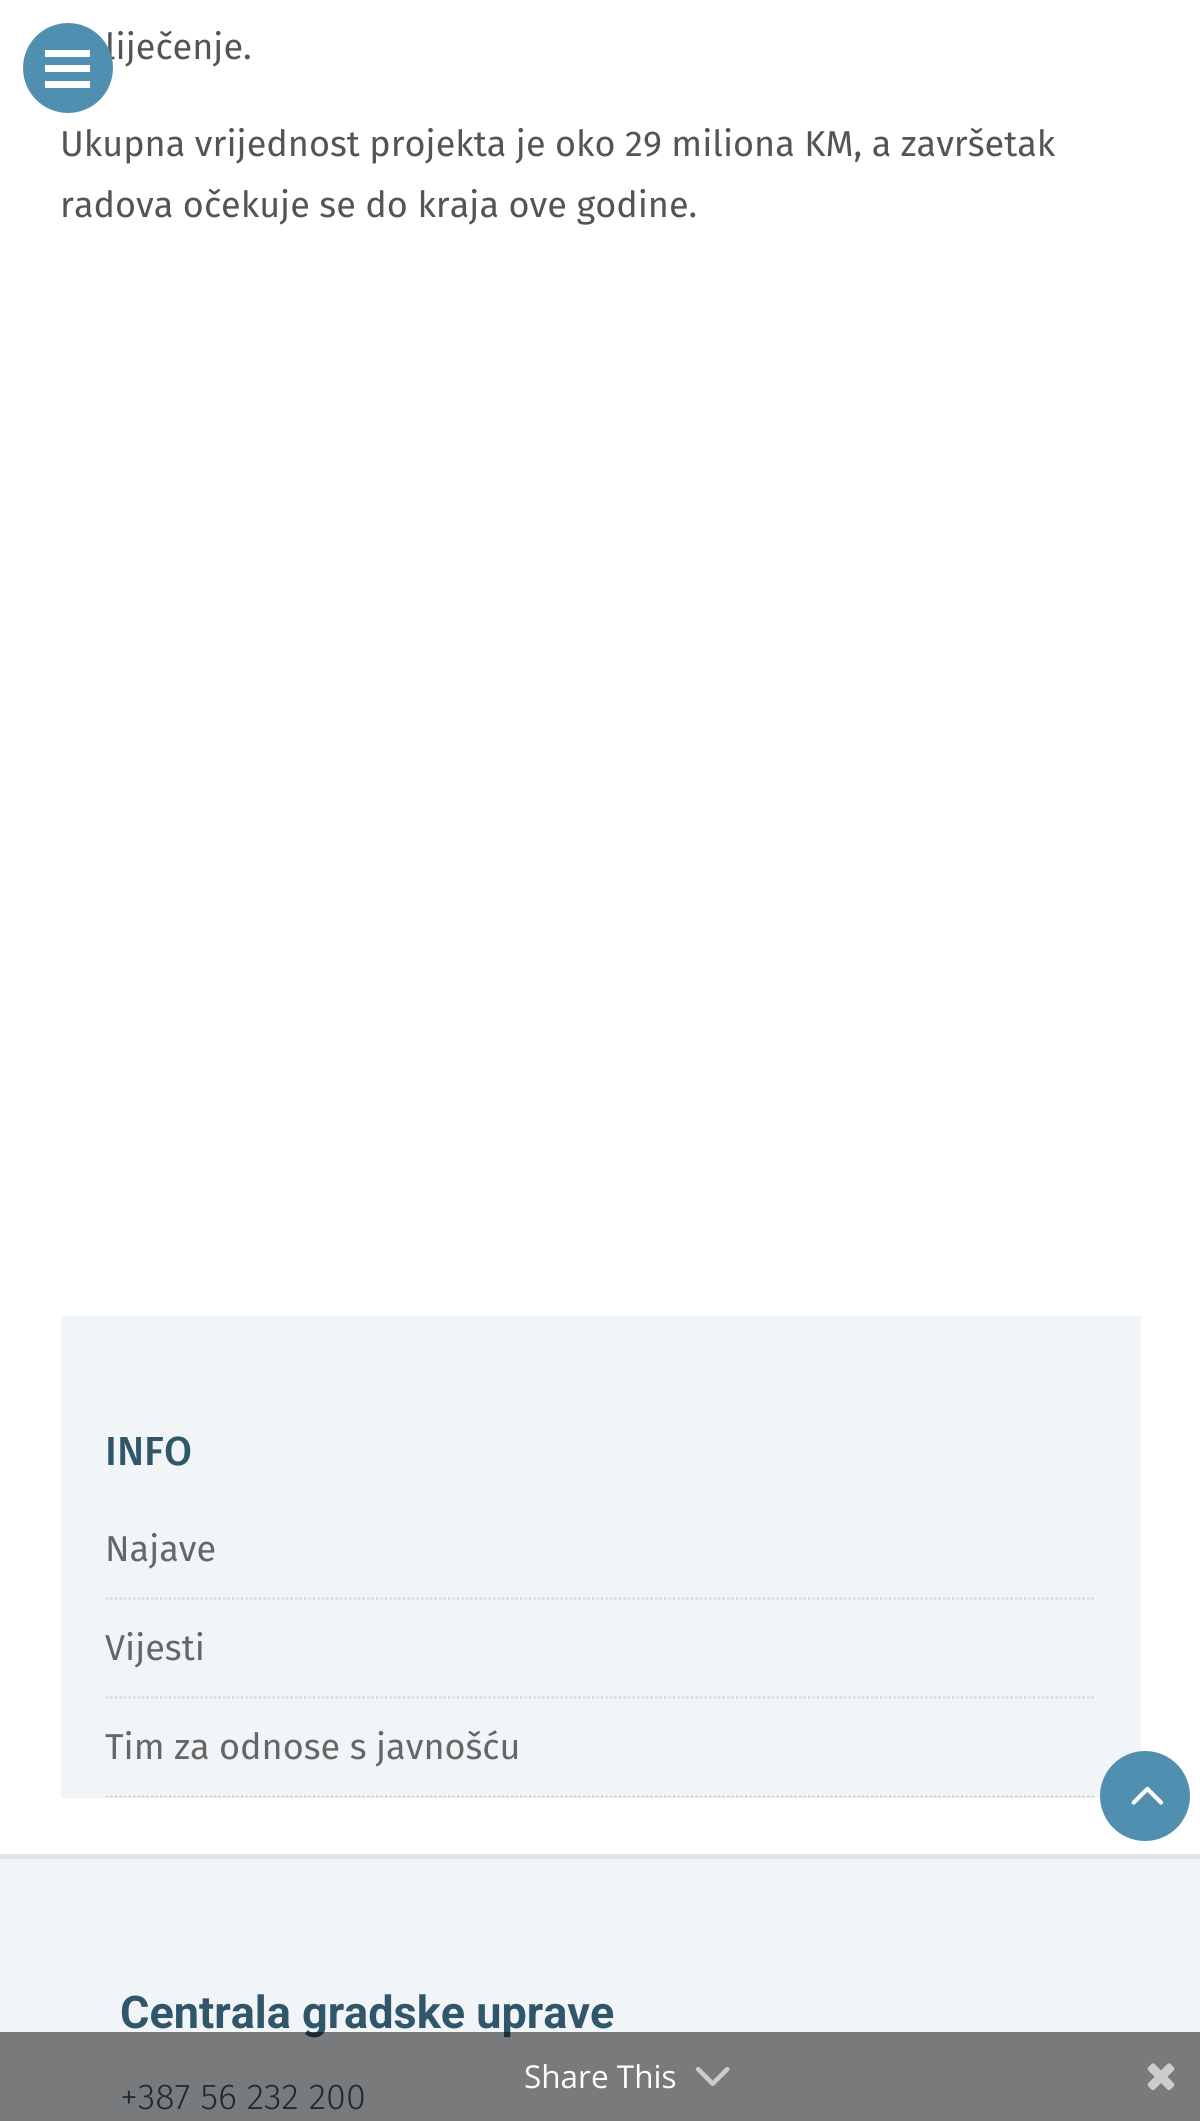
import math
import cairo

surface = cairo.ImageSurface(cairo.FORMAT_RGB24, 1200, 2121)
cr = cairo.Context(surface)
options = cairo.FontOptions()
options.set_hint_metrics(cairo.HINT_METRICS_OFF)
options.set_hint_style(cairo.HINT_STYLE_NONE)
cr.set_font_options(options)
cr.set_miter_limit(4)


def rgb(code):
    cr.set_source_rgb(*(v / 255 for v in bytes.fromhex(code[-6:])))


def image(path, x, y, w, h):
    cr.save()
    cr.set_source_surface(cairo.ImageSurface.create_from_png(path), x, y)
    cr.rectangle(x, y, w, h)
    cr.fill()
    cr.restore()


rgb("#ffffff")
cr.paint()
rgb("#f1f5f7")
cr.rectangle(61, 1316, 1080, 482)
cr.fill()
cr.new_path()
cr.move_to(106, 1598.5)
cr.line_to(1096, 1598.5)
rgb("#d1d5d7")
cr.set_line_width(2.2)
cr.set_dash([2.25, 2.25])
cr.stroke()
cr.new_path()
cr.move_to(106, 1697.5)
cr.line_to(1096, 1697.5)
cr.stroke()
cr.new_path()
cr.move_to(106, 1796.5)
cr.line_to(1096, 1796.5)
cr.stroke()
rgb("#f1f5f7")
cr.rectangle(0, 1859, 1200, 262)
cr.fill()
rgb("#e1e5e7")
cr.rectangle(0, 1854, 1200, 5)
cr.fill()
rgb("#508fb0")
cr.arc(1145, 1796, 45, 0, 2 * math.pi)
cr.fill()
image("img/1.png", 1131, 1786, 33, 19)
cr.select_font_face("Fira Sans")
cr.set_font_size(36)
rgb("#515557")
cr.move_to(105, 59)
cr.show_text("liječenje.")
rgb("#508fb0")
cr.new_path()
cr.arc(68, 68, 45, 0, 2 * math.pi)
cr.fill()
for x, y, w, h, color in [
    (45, 81, 45, 7, "#ffffff"),
    (45, 65, 45, 7, "#ffffff"),
    (45, 50, 45, 7, "#ffffff"),
]:
    rgb(color)
    cr.rectangle(x, y, w, h)
    cr.fill()
rgb("#515557")
cr.move_to(60, 156)
cr.show_text("Ukupna vrijednost projekta je oko 29 miliona KM, a završetak")
cr.move_to(60, 217)
cr.show_text("radova očekuje se do kraja ove godine.")
cr.select_font_face("Fira Sans Medium")
cr.set_font_size(40.5)
rgb("#30566a")
cr.move_to(105, 1465)
cr.show_text("INFO")
cr.select_font_face("Fira Sans")
cr.set_font_size(36)
rgb("#666666")
for x, y, s in [
    (105, 1561, "Najave"),
    (105, 1660, "Vijesti"),
    (105, 1759, "Tim za odnose s javnošću"),
]:
    cr.move_to(x, y)
    cr.show_text(s)
cr.select_font_face("Roboto", cairo.FONT_SLANT_NORMAL, cairo.FONT_WEIGHT_BOLD)
cr.set_font_size(45)
rgb("#30566a")
cr.move_to(120, 2028)
cr.show_text("Centrala gradske uprave")
cr.select_font_face("Fira Sans Light")
cr.set_font_size(36)
cr.move_to(120, 2109)
cr.show_text("+387 56 232 200")
cr.set_source_rgba(0, 0, 0, 0.5)
cr.rectangle(0, 2032, 1200, 89)
cr.fill()
cr.select_font_face("Open Sans")
cr.set_font_size(31.5)
rgb("#ffffff")
cr.move_to(524, 2088)
cr.show_text("Share This")
image("img/2.png", 695, 2067, 35, 19)
image("img/3.png", 1147, 2063, 28, 28)
surface.write_to_png("page.png")
